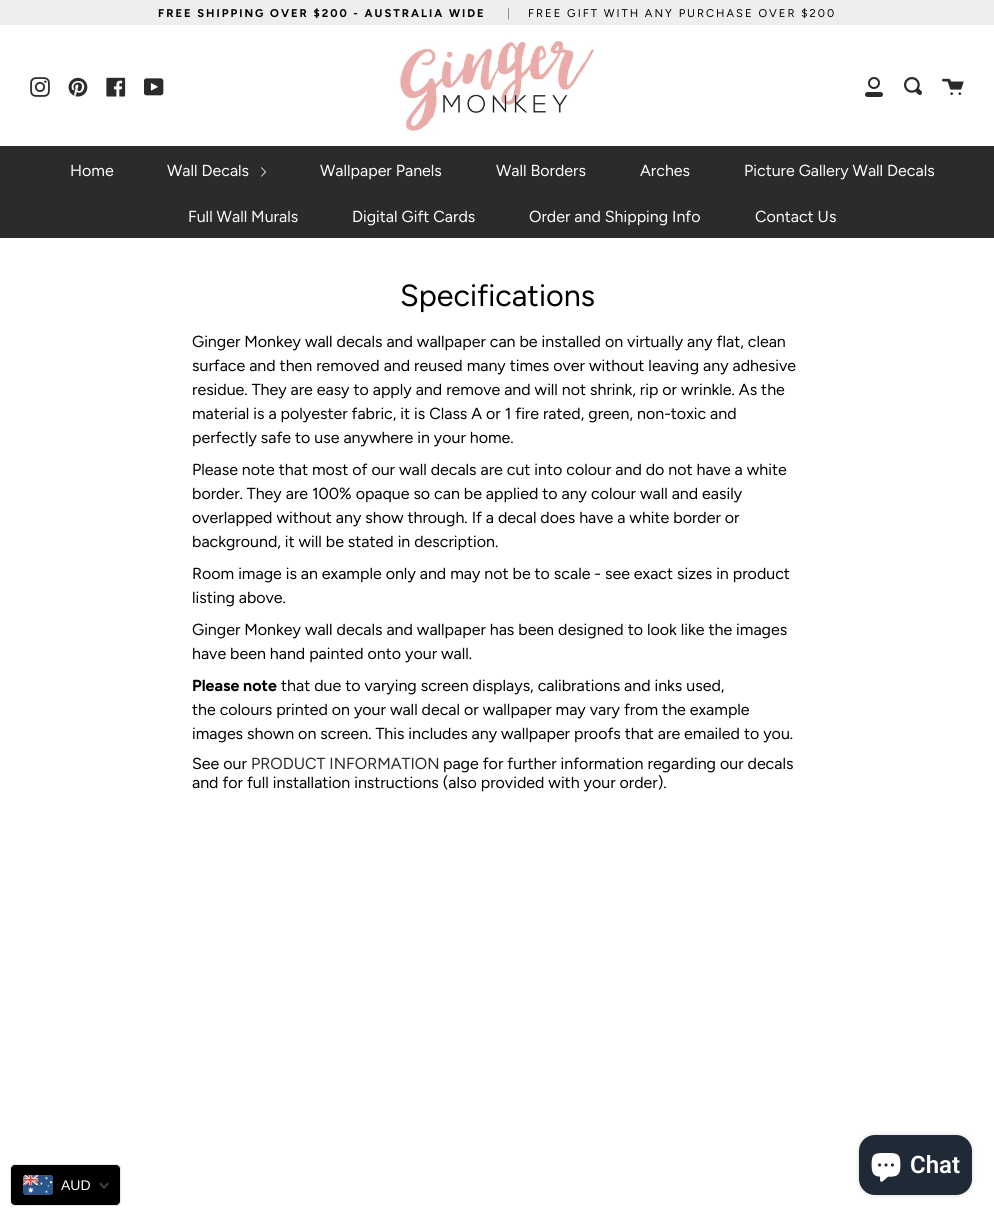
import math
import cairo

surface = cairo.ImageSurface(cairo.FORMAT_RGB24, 994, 1216)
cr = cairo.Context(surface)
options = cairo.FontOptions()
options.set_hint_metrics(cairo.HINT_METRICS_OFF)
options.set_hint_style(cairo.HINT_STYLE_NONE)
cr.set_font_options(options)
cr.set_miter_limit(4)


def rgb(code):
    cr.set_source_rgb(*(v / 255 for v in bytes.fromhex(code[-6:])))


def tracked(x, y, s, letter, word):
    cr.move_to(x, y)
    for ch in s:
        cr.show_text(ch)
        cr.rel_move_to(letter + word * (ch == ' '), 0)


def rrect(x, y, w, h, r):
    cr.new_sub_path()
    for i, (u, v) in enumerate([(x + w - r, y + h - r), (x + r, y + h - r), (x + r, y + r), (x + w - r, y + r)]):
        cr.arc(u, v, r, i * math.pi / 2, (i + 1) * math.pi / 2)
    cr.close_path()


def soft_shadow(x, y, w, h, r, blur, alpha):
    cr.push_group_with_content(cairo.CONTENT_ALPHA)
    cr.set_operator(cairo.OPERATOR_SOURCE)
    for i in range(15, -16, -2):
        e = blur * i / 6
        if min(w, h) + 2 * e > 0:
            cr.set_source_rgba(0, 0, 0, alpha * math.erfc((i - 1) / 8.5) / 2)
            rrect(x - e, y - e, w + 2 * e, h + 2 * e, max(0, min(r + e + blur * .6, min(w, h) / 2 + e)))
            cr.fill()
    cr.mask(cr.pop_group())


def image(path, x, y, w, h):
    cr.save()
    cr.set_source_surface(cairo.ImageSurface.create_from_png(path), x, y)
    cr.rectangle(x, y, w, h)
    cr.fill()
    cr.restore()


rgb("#ffffff")
cr.paint()
rgb("#efeeec")
cr.rectangle(0, 0, 994, 25)
cr.fill()
image("img/1.png", 30, 77, 20, 20)
image("img/2.png", 68, 77, 20, 20)
image("img/3.png", 106, 77, 20, 20)
image("img/4.png", 144, 78, 20, 18)
image("img/5.png", 397, 40, 200, 94)
image("img/6.png", 865, 77, 18, 20)
image("img/7.png", 904, 77, 18, 18)
image("img/8.png", 942, 78, 22, 17)
rgb("#2b2b2b")
cr.rectangle(0, 146, 994, 92)
cr.fill()
image("img/9.png", 261, 167, 5, 10)
rgb("#000000")
soft_shadow(859, 1135, 113, 60, 16, 2.5, 0.15)
rgb("#202a36")
rrect(859, 1135, 113, 60, 16)
cr.fill()
image("img/10.png", 871, 1153, 30, 29)
rgb("#000000")
rrect(10.5, 1164.5, 110, 41, 4.5)
cr.fill_preserve()
rgb("#e8e8e8")
cr.set_line_width(1)
cr.stroke()
image("img/11.png", 23, 1175, 30, 20)
rgb("#403f3f")
cr.new_path()
cr.move_to(107.5, 1182.5)
cr.line_to(109, 1184)
cr.line_to(104, 1189)
cr.line_to(102.5, 1187.5)
cr.close_path()
cr.fill()
cr.new_path()
cr.move_to(100.5, 1182.5)
cr.line_to(105.5, 1187.5)
cr.line_to(104, 1189)
cr.line_to(99, 1184)
cr.close_path()
cr.fill()
cr.select_font_face("Figtree", cairo.FONT_SLANT_NORMAL, cairo.FONT_WEIGHT_BOLD)
cr.set_font_size(11.2)
rgb("#000000")
tracked(158, 17, "FREE SHIPPING OVER $200 - AUSTRALIA WIDE", 2, 0)
cr.select_font_face("Figtree")
rgb("#787776")
tracked(507, 17, "|", 2, 0)
rgb("#000000")
tracked(528, 17, "FREE GIFT WITH ANY PURCHASE OVER $200", 2, 0)
cr.set_font_size(16)
rgb("#ffffff")
for x, y, s in [
    (70, 176, "Home"),
    (167, 176, "Wall Decals"),
    (320, 176, "Wallpaper Panels"),
    (496, 176, "Wall Borders"),
    (640, 176, "Arches"),
    (744, 176, "Picture Gallery Wall Decals"),
    (188, 222, "Full Wall Murals"),
    (352, 222, "Digital Gift Cards"),
    (529, 222, "Order and Shipping Info"),
    (755, 222, "Contact Us"),
]:
    cr.move_to(x, y)
    cr.show_text(s)
cr.set_font_size(30.5)
rgb("#000000")
cr.move_to(400, 306)
cr.show_text("Specifications")
cr.set_font_size(16)
for x, y, s in [
    (192, 347, "Ginger Monkey wall decals and wallpaper can be installed on virtually any flat, clean"),
    (192, 371, "surface and then removed and reused many times over without leaving any adhesive"),
    (192, 395, "residue. They are easy to apply and remove and will not shrink, rip or wrinkle. As the"),
    (192, 419, "material is a polyester fabric, it is Class A or 1 fire rated, green, non-toxic and"),
    (192, 443, "perfectly safe to use anywhere in your home."),
    (192, 475, "Please note that most of our wall decals are cut into colour and do not have a white"),
    (192, 499, "border. They are 100% opaque so can be applied to any colour wall and easily"),
    (192, 523, "overlapped without any show through. If a decal does have a white border or"),
    (192, 547, "background, it will be stated in description."),
    (192, 579, "Room image is an example only and may not be to scale - see exact sizes in product"),
    (192, 603, "listing above."),
    (192, 635, "Ginger Monkey wall decals and wallpaper has been designed to look like the images"),
    (192, 659, "have been hand painted onto your wall."),
]:
    cr.move_to(x, y)
    cr.show_text(s)
cr.select_font_face("Figtree", cairo.FONT_SLANT_NORMAL, cairo.FONT_WEIGHT_BOLD)
cr.move_to(192, 691)
cr.show_text("Please note")
cr.select_font_face("Figtree")
for x, y, s in [
    (281, 691, "that due to varying screen displays, calibrations and inks used,"),
    (192, 715, "the colours printed on your wall decal or wallpaper may vary from the example"),
    (192, 739, "images shown on screen. This includes any wallpaper proofs that are emailed to you."),
    (192, 769, "See our"),
]:
    cr.move_to(x, y)
    cr.show_text(s)
rgb("#2b2b2b")
cr.move_to(251, 769)
cr.show_text("PRODUCT INFORMATION")
rgb("#000000")
cr.move_to(443, 769)
cr.show_text("page for further information regarding our decals")
cr.move_to(192, 788)
cr.show_text("and for full installation instructions (also provided with your order).")
cr.select_font_face("Roboto SemiBold")
cr.set_font_size(24)
rgb("#ffffff")
cr.move_to(910, 1173)
cr.show_text("Chat")
cr.select_font_face("Liberation Sans")
cr.set_font_size(14)
cr.move_to(61, 1190)
cr.show_text("AUD")
surface.write_to_png("page.png")
